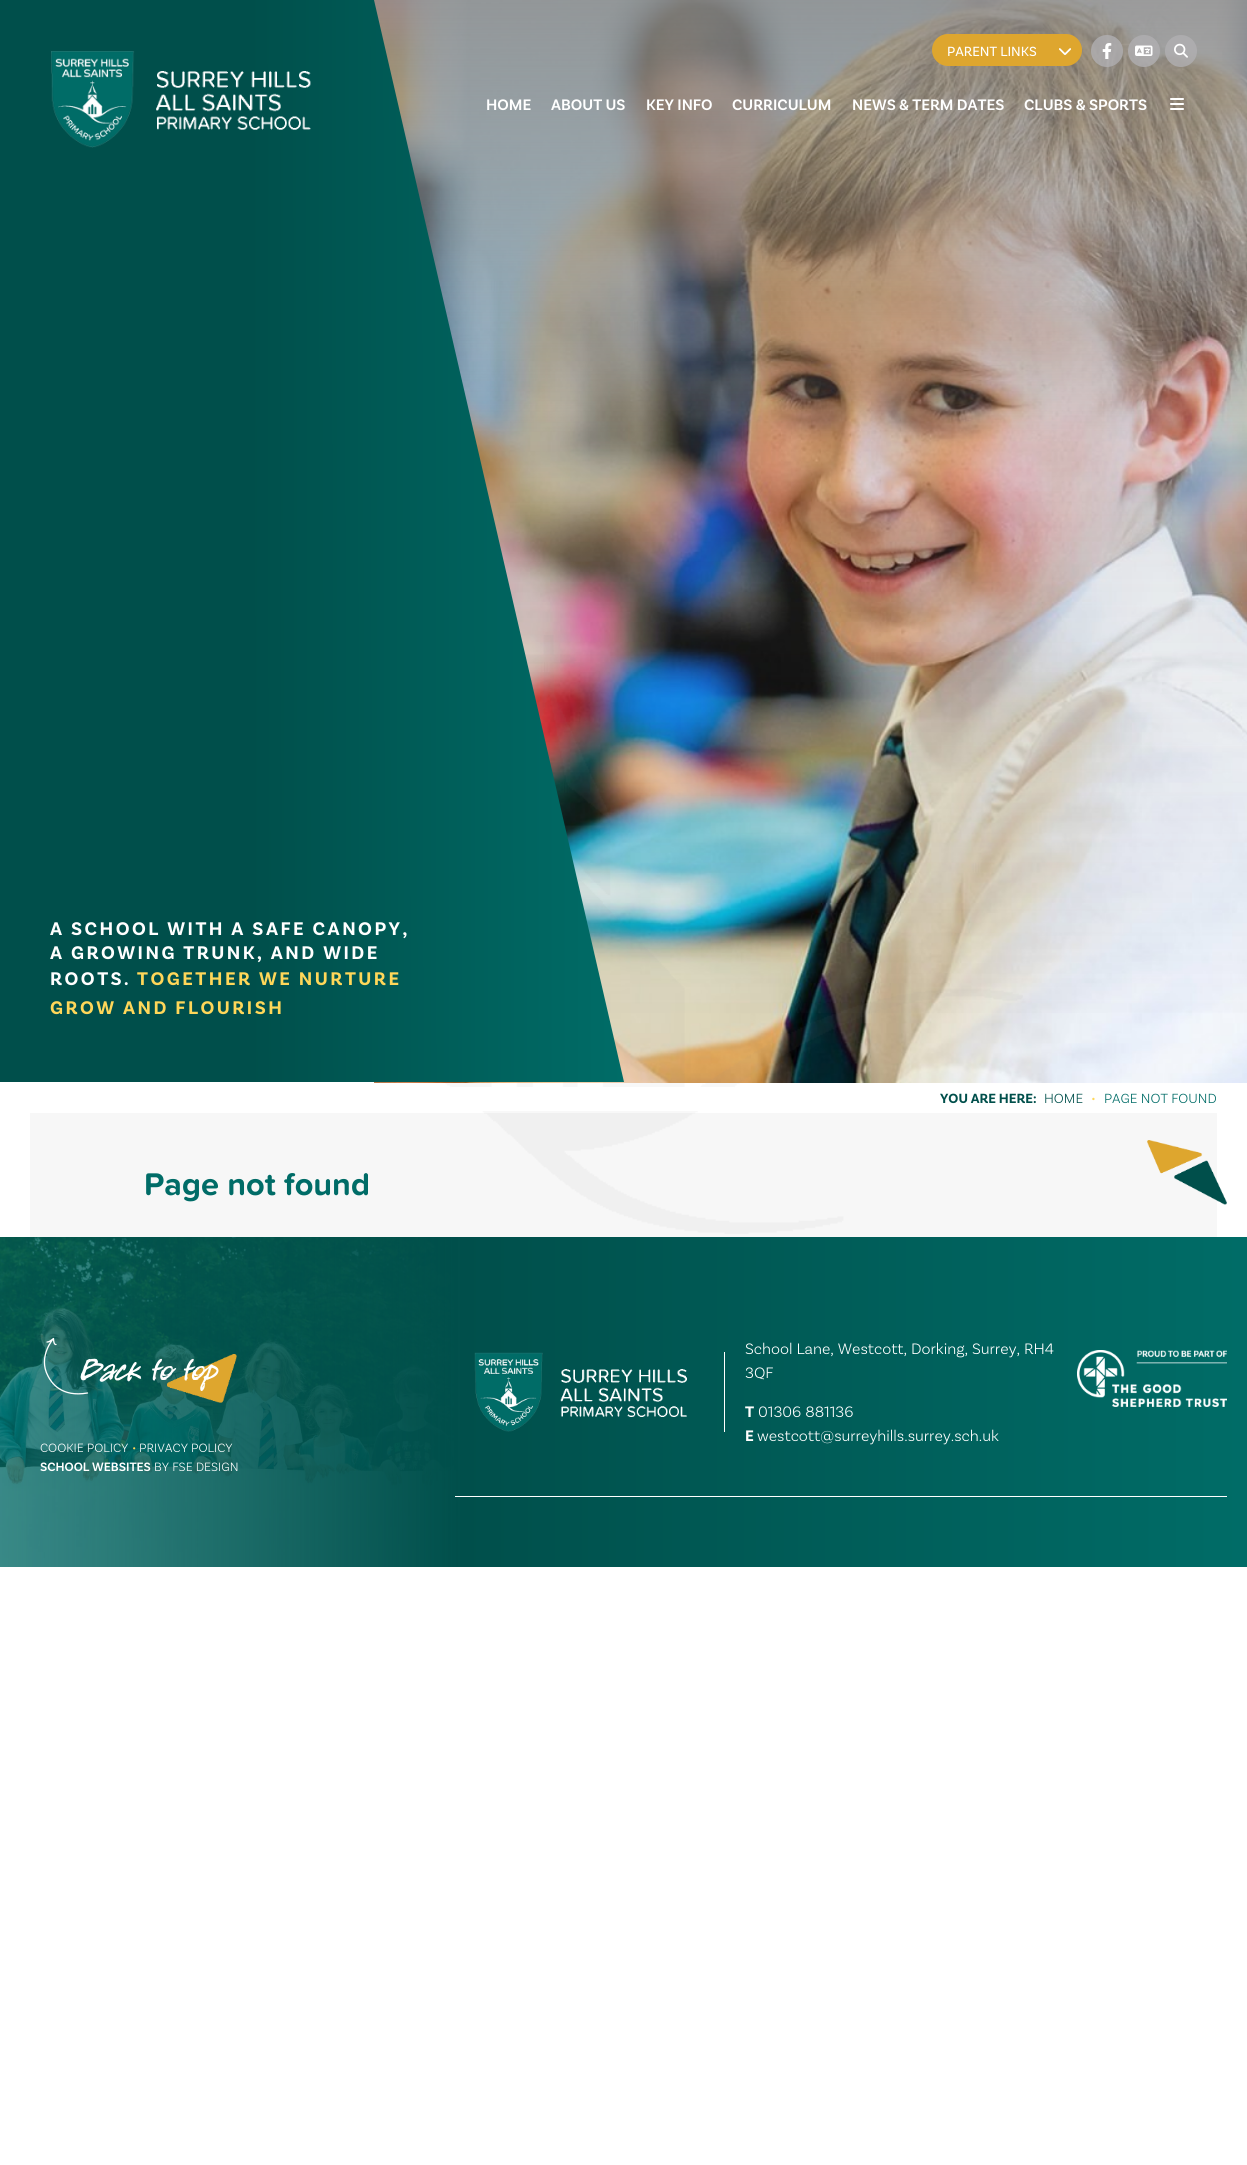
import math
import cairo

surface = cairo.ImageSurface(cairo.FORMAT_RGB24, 1247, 2165)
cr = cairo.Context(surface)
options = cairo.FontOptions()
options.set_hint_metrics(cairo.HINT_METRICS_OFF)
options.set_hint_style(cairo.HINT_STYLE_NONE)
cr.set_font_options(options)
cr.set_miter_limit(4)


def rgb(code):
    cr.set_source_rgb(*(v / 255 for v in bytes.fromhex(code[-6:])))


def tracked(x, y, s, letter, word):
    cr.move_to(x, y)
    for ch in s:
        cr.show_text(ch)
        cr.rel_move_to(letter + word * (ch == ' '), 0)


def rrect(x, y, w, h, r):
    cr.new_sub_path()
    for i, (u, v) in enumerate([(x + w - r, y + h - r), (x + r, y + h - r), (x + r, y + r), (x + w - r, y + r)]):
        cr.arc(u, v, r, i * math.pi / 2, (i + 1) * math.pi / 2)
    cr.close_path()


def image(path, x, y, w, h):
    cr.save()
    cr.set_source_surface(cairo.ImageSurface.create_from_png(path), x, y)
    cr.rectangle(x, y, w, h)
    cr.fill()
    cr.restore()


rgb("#ffffff")
cr.paint()
image("img/7.png", 374, 0, 873, 1083)
rgb("#f7f7f7")
cr.rectangle(30, 1113, 1187, 124)
cr.fill()
image("img/8.png", 443, 635, 580, 599)
gradient = cairo.LinearGradient(623, 0, 624, 1083)
gradient.add_color_stop_rgba(0, 0.553, 0.549, 0.549, 0.8)
gradient.add_color_stop_rgba(0.4, 0.553, 0.549, 0.549, 0.2)
gradient.add_color_stop_rgba(1, 0.553, 0.549, 0.549, 0)
cr.set_source(gradient)
cr.rectangle(374, 0, 873, 1013)
cr.fill()
rgb("#dea62e")
rrect(932, 34, 150, 32, 16)
cr.fill()
image("img/1.png", 1059, 48, 12, 7)
cr.set_source_rgba(0.69, 0.686, 0.694, 0.8)
cr.arc(1107, 51, 16, 0, 2 * math.pi)
cr.fill()
image("img/2.png", 1102, 43, 10, 16)
cr.arc(1144, 51, 16, 0, 2 * math.pi)
cr.fill()
image("img/3.png", 1135, 45, 18, 11)
cr.arc(1181, 51, 16, 0, 2 * math.pi)
cr.fill()
image("img/4.png", 1174, 43, 14, 15)
gradient = cairo.LinearGradient(624, 541, 0, 542)
gradient.add_color_stop_rgba(0, 0, 0.424, 0.404, 1)
gradient.add_color_stop_rgba(0.6, 0, 0.31, 0.294, 1)
cr.set_source(gradient)
cr.new_path()
cr.move_to(0, 0)
cr.line_to(0, 1082)
cr.line_to(624, 1082)
cr.line_to(374, 0)
cr.close_path()
cr.fill()
image("img/5.png", 51, 51, 260, 97)
image("img/6.png", 1170, 98, 14, 12)
rgb("#ffffff")
cr.rectangle(451, 1087, 283, 24)
cr.fill()
image("img/9.png", 1147, 1140, 80, 65)
rgb("#006c67")
cr.rectangle(0, 1237, 458, 330)
cr.fill()
image("img/10.png", 0, 1237, 458, 330)
gradient = cairo.LinearGradient(0, 1402, 1247, 1402)
gradient.add_color_stop_rgba(0, 0, 0.31, 0.294, 0.1)
gradient.add_color_stop_rgba(0.37, 0, 0.31, 0.294, 1)
gradient.add_color_stop_rgba(1, 0, 0.424, 0.404, 1)
cr.set_source(gradient)
cr.rectangle(0, 1237, 1247, 330)
cr.fill()
cr.save()
cr.new_path()
cr.move_to(84.5, 1402)
cr.line_to(30, 1376.5)
cr.line_to(49.5, 1335.5)
cr.line_to(103.5, 1360.5)
cr.close_path()
cr.clip()
cr.new_path()
cr.move_to(87.5, 1393)
cr.curve_to(61.5, 1397.5, 51.5, 1383, 48, 1376)
cr.curve_to(37.5, 1356.5, 53.5, 1338.5, 53.5, 1338.5)
cr.curve_to(51.5, 1340, 49.5, 1342, 47, 1342)
cr.curve_to(50, 1342, 52, 1340, 53.5, 1338.5)
cr.curve_to(53.5, 1338.5, 53.5, 1345, 56, 1344.5)
rgb("#ffffff")
cr.set_line_width(1.3)
cr.set_line_cap(cairo.LINE_CAP_ROUND)
cr.set_line_join(cairo.LINE_JOIN_ROUND)
cr.stroke()
cr.restore()
image("img/11.png", 167, 1354, 70, 49)
image("img/12.png", 474, 1352, 213, 80)
rgb("#ffffff")
cr.rectangle(724, 1352, 1, 80)
cr.fill()
image("img/13.png", 1077, 1350, 150, 57)
cr.rectangle(455, 1496, 772, 1)
cr.fill()
cr.select_font_face("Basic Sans")
cr.set_font_size(14)
cr.move_to(947, 56)
cr.show_text("PARENT LINKS")
cr.select_font_face("Basic Sans SemiBold")
cr.set_font_size(16)
for x, y, s in [
    (486, 110, "HOME"),
    (551, 110, "ABOUT US"),
    (646, 110, "KEY INFO"),
    (732, 110, "CURRICULUM"),
    (852, 110, "NEWS & TERM DATES"),
    (1024, 110, "CLUBS & SPORTS"),
]:
    cr.move_to(x, y)
    cr.show_text(s)
cr.select_font_face("Basic Sans", cairo.FONT_SLANT_NORMAL, cairo.FONT_WEIGHT_BOLD)
cr.set_font_size(19.25)
for x, y, s in [
    (50, 935, "A SCHOOL WITH A SAFE CANOPY,"),
    (50, 959, "A GROWING TRUNK, AND WIDE"),
    (50, 985, "ROOTS."),
]:
    tracked(x, y, s, 2.5, 0)
rgb("#ffd759")
tracked(137, 985, "TOGETHER WE NURTURE", 2.5, 0)
tracked(50, 1014, "GROW AND FLOURISH", 2.5, 0)
cr.set_font_size(14)
rgb("#004f4b")
cr.move_to(940, 1103)
cr.show_text("YOU ARE HERE:")
cr.select_font_face("Basic Sans Light")
cr.move_to(1044, 1103)
cr.show_text("HOME")
rgb("#ffd759")
cr.move_to(1091, 1103)
cr.show_text("•")
rgb("#006c67")
cr.move_to(1104, 1103)
cr.show_text("PAGE NOT FOUND")
cr.select_font_face("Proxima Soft", cairo.FONT_SLANT_NORMAL, cairo.FONT_WEIGHT_BOLD)
cr.set_font_size(32.5)
cr.move_to(144, 1195)
cr.show_text("Page not found")
cr.select_font_face("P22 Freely")
cr.set_font_size(34)
rgb("#ffffff")
cr.move_to(80, 1380)
cr.show_text("Back to top")
cr.select_font_face("Basic Sans Light")
cr.set_font_size(12.75)
cr.move_to(40, 1452)
cr.show_text("COOKIE POLICY")
rgb("#ffd759")
cr.move_to(132, 1452)
cr.show_text("•")
rgb("#ffffff")
cr.move_to(139, 1452)
cr.show_text("PRIVACY POLICY")
cr.select_font_face("Basic Sans SemiBold")
cr.move_to(40, 1471)
cr.show_text("SCHOOL WEBSITES")
cr.select_font_face("Basic Sans Light")
cr.move_to(154, 1471)
cr.show_text("BY FSE DESIGN")
cr.set_font_size(16)
cr.move_to(745, 1354)
cr.show_text("School Lane, Westcott, Dorking, Surrey, RH4")
cr.move_to(745, 1378)
cr.show_text("3QF")
cr.select_font_face("Basic Sans", cairo.FONT_SLANT_NORMAL, cairo.FONT_WEIGHT_BOLD)
cr.move_to(745, 1417)
cr.show_text("T")
cr.select_font_face("Basic Sans Light")
cr.move_to(758, 1417)
cr.show_text("01306 881136")
cr.select_font_face("Basic Sans", cairo.FONT_SLANT_NORMAL, cairo.FONT_WEIGHT_BOLD)
cr.move_to(745, 1441)
cr.show_text("E")
cr.select_font_face("Basic Sans Light")
cr.move_to(757, 1441)
cr.show_text("westcott@surreyhills.surrey.sch.uk")
surface.write_to_png("page.png")
